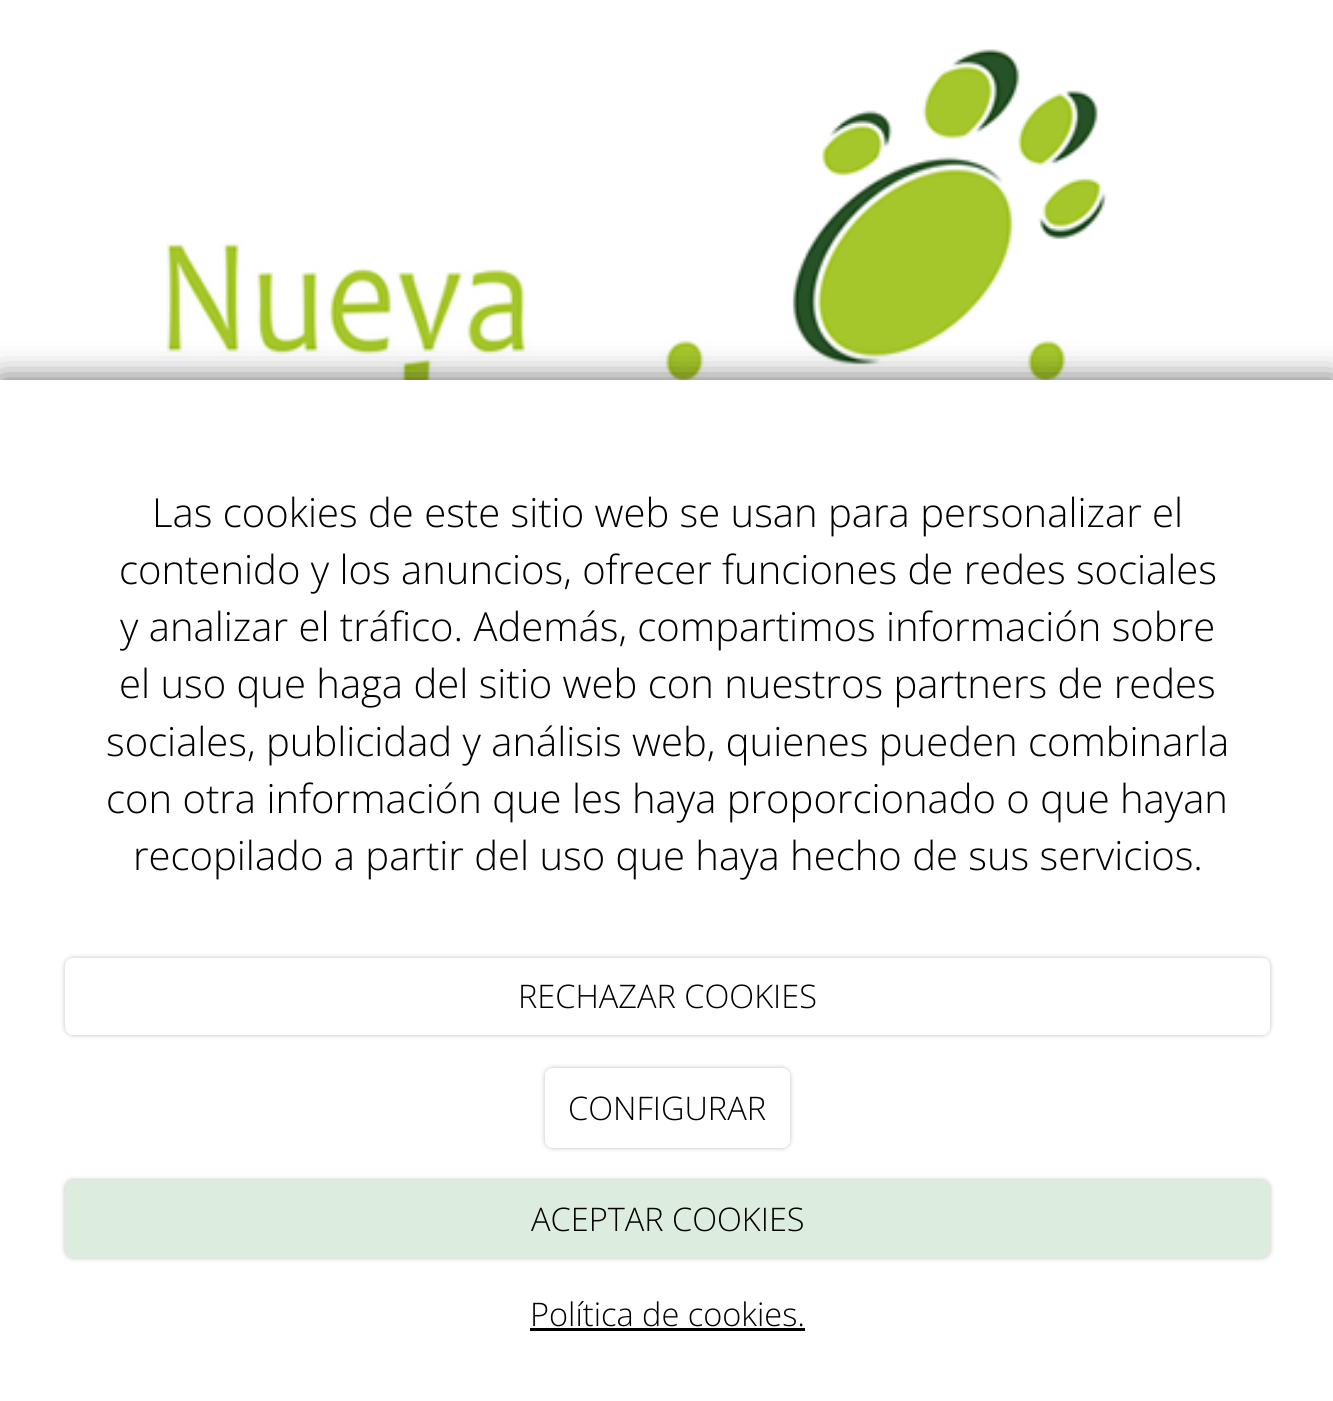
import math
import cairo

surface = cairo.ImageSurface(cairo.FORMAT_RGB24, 1333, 1401)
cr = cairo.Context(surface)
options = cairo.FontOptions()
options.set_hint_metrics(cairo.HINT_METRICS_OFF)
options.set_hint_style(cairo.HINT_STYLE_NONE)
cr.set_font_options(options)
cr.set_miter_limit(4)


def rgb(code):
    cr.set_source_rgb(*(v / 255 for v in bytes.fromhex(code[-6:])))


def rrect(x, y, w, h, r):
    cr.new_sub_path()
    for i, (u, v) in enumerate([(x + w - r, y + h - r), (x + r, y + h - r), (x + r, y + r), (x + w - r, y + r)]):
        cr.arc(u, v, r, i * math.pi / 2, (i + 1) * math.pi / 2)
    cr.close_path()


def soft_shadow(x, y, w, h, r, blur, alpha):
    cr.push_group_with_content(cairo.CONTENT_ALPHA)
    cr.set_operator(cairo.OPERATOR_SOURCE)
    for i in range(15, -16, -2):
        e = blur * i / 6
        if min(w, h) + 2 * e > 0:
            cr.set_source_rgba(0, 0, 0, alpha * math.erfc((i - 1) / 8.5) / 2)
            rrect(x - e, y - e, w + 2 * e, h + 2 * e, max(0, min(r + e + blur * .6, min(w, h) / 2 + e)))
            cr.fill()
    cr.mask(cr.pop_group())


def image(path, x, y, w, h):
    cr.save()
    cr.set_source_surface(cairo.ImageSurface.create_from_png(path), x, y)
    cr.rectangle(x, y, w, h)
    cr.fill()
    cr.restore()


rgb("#ffffff")
cr.paint()
image("img/1.png", 166, 49, 944, 331)
rgb("#000000")
soft_shadow(0, 380, 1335, 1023, 0, 16, 0.6)
rgb("#ffffff")
cr.rectangle(0, 380, 1333, 1021)
cr.fill()
rgb("#000000")
soft_shadow(65, 958, 1205, 77, 8, 2.5, 0.25)
rgb("#ffffff")
rrect(65, 958, 1205, 77, 8)
cr.fill()
rgb("#000000")
soft_shadow(545, 1068, 245, 80, 8, 2.5, 0.25)
rgb("#ffffff")
rrect(545, 1068, 245, 80, 8)
cr.fill()
rgb("#000000")
soft_shadow(65, 1180, 1205, 78, 8, 2.5, 0.25)
rgb("#dcecdf")
rrect(65, 1180, 1205, 78, 8)
cr.fill()
rgb("#000000")
cr.rectangle(530, 1328, 275, 3)
cr.fill()
cr.select_font_face("Open Sans Light")
cr.set_font_size(40)
for x, y, s in [
    (152, 527, "Las cookies de este sitio web se usan para personalizar el"),
    (119, 584, "contenido y los anuncios, ofrecer funciones de redes sociales"),
    (120, 641, "y analizar el tráfico. Además, compartimos información sobre"),
    (119, 698, "el uso que haga del sitio web con nuestros partners de redes"),
    (106, 756, "sociales, publicidad y análisis web, quienes pueden combinarla"),
    (106, 813, "con otra información que les haya proporcionado o que hayan"),
    (133, 870, "recopilado a partir del uso que haya hecho de sus servicios."),
]:
    cr.move_to(x, y)
    cr.show_text(s)
cr.set_font_size(32.5)
for x, y, s in [
    (518, 1008, "RECHAZAR COOKIES"),
    (568, 1120, "CONFIGURAR"),
    (531, 1231, "ACEPTAR COOKIES"),
    (530, 1326, "Política de cookies."),
]:
    cr.move_to(x, y)
    cr.show_text(s)
surface.write_to_png("page.png")
